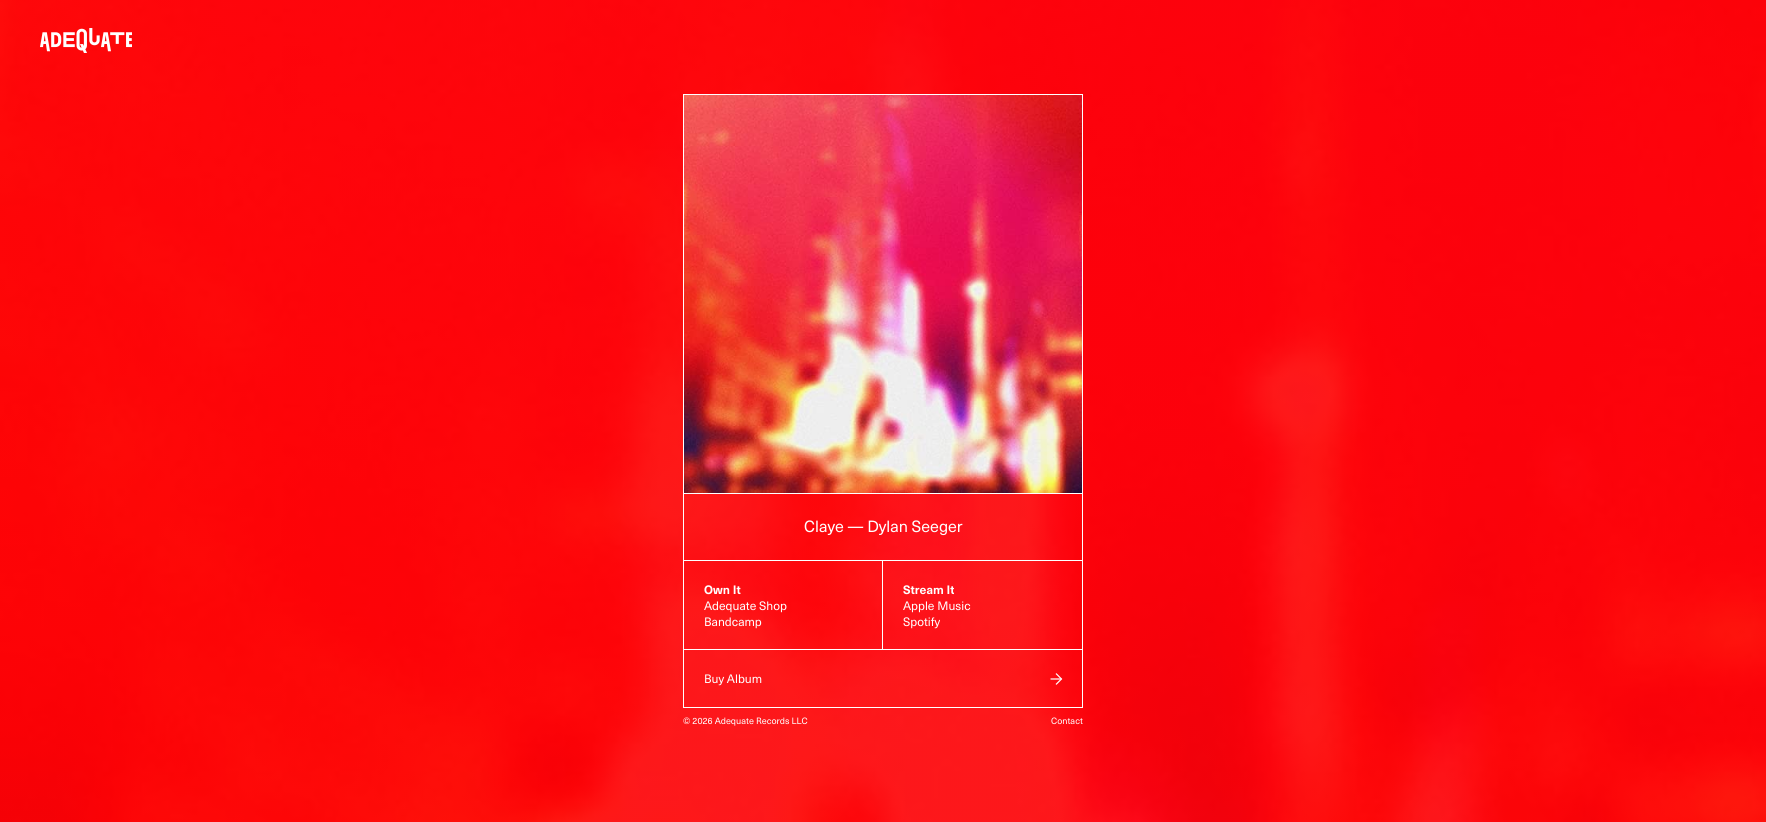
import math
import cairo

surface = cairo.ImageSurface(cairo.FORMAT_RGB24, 1766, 822)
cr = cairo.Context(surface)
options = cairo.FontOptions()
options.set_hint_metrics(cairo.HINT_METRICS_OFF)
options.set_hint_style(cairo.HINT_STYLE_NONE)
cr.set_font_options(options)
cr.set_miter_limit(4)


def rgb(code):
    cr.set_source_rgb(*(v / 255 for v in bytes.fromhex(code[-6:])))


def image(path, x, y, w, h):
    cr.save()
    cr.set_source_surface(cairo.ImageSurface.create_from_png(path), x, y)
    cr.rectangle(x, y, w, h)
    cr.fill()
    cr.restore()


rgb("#ffffff")
cr.paint()
image("img/2.png", 0, 0, 1766, 822)
image("img/1.png", 40, 28, 92, 25)
for x, y, w, h, color in [
    (683, 94, 400, 1, "#ffffff"),
    (1082, 94, 1, 614, "#ffffff"),
    (683, 94, 1, 614, "#ffffff"),
    (684, 493, 398, 1, "#ffffff"),
]:
    rgb(color)
    cr.rectangle(x, y, w, h)
    cr.fill()
image("img/3.png", 684, 95, 398, 398)
for x, y, w, h, color in [
    (684, 560, 398, 1, "#ffffff"),
    (882, 561, 1, 89, "#ffffff"),
    (684, 649, 398, 1, "#ffffff"),
    (684, 707, 398, 1, "#ffffff"),
]:
    rgb(color)
    cr.rectangle(x, y, w, h)
    cr.fill()
image("img/4.png", 1050, 673, 13, 12)
cr.select_font_face("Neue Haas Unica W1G")
cr.set_font_size(16)
cr.move_to(804, 532)
cr.show_text("Claye — Dylan Seeger")
cr.select_font_face("Neue Haas Unica W1G", cairo.FONT_SLANT_NORMAL, cairo.FONT_WEIGHT_BOLD)
cr.set_font_size(12)
cr.move_to(704, 594)
cr.show_text("Own It")
cr.select_font_face("Neue Haas Unica W1G")
cr.move_to(704, 610)
cr.show_text("Adequate Shop")
cr.move_to(704, 626)
cr.show_text("Bandcamp")
cr.select_font_face("Neue Haas Unica W1G", cairo.FONT_SLANT_NORMAL, cairo.FONT_WEIGHT_BOLD)
cr.move_to(903, 594)
cr.show_text("Stream It")
cr.select_font_face("Neue Haas Unica W1G")
for x, y, s in [
    (903, 610, "Apple Music"),
    (903, 626, "Spotify"),
    (704, 683, "Buy Album"),
]:
    cr.move_to(x, y)
    cr.show_text(s)
cr.set_font_size(9)
cr.move_to(683, 724)
cr.show_text("© 2026 Adequate Records LLC")
cr.move_to(1051, 724)
cr.show_text("Contact")
surface.write_to_png("page.png")
